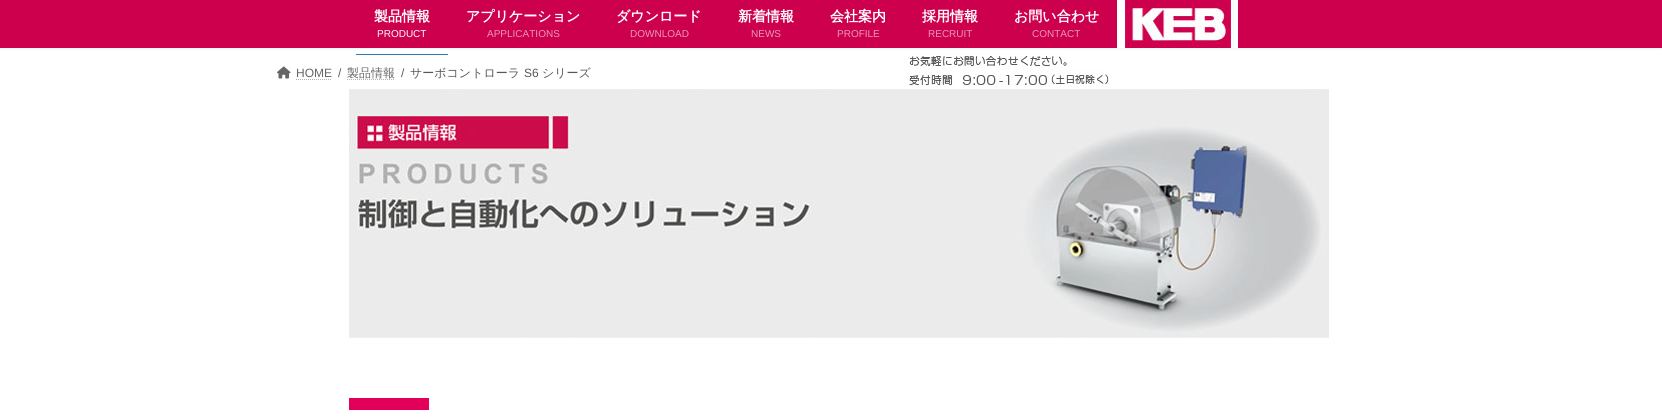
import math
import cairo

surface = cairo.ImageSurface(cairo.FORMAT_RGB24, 1662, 417)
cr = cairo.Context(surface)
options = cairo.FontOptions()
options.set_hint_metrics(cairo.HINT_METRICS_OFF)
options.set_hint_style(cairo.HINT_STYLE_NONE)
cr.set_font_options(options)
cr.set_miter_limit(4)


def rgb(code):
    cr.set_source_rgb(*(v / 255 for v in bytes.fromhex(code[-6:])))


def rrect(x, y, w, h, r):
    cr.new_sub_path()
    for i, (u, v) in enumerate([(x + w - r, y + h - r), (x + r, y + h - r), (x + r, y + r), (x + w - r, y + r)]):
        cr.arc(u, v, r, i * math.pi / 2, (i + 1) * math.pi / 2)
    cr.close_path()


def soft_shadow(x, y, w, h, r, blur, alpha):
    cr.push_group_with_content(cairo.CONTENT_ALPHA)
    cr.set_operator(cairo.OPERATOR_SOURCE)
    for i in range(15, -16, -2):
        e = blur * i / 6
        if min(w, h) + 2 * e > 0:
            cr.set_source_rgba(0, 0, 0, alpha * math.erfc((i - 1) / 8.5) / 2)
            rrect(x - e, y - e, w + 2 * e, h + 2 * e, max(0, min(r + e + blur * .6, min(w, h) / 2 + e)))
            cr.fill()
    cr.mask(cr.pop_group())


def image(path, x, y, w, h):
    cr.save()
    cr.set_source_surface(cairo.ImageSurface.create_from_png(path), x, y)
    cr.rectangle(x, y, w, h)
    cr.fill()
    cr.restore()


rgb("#ffffff")
cr.paint()
image("img/3.png", 908, 54, 201, 32)
rgb("#000000")
soft_shadow(0, 1, 1662, 48, 0, 1.5, 0.05)
rgb("#cd004d")
cr.rectangle(0, 0, 1662, 48)
cr.fill()
rgb("#337ab7")
cr.rectangle(356, 54, 92, 1)
cr.fill()
image("img/1.png", 1117, 0, 121, 48)
image("img/2.png", 277, 66, 14, 13)
cr.new_path()
cr.move_to(296, 79.5)
cr.line_to(332, 79.5)
rgb("#b3b3b3")
cr.set_line_width(1)
cr.set_dash([1, 1])
cr.stroke()
cr.new_path()
cr.move_to(347, 79.5)
cr.line_to(395, 79.5)
cr.stroke()
image("img/4.png", 349, 89, 980, 249)
rgb("#e3005b")
cr.rectangle(349, 398, 80, 12)
cr.fill()
cr.select_font_face("WenQuanYi Zen Hei", cairo.FONT_SLANT_NORMAL, cairo.FONT_WEIGHT_BOLD)
cr.set_font_size(14)
rgb("#ffffff")
cr.move_to(374, 21)
cr.show_text("製品情報")
cr.select_font_face("Liberation Sans")
cr.set_font_size(10)
cr.move_to(377, 37)
cr.show_text("PRODUCT")
cr.select_font_face("WenQuanYi Zen Hei", cairo.FONT_SLANT_NORMAL, cairo.FONT_WEIGHT_BOLD)
cr.set_font_size(14)
cr.move_to(466, 21)
cr.show_text("アプリケーション")
cr.select_font_face("Liberation Sans")
cr.set_font_size(10)
rgb("#eb99b8")
cr.move_to(487, 37)
cr.show_text("APPLICATIONS")
cr.select_font_face("WenQuanYi Zen Hei", cairo.FONT_SLANT_NORMAL, cairo.FONT_WEIGHT_BOLD)
cr.set_font_size(14)
rgb("#ffffff")
cr.move_to(616, 21)
cr.show_text("ダウンロード")
cr.select_font_face("Liberation Sans")
cr.set_font_size(10)
rgb("#eb99b8")
cr.move_to(630, 37)
cr.show_text("DOWNLOAD")
cr.select_font_face("WenQuanYi Zen Hei", cairo.FONT_SLANT_NORMAL, cairo.FONT_WEIGHT_BOLD)
cr.set_font_size(14)
rgb("#ffffff")
cr.move_to(738, 21)
cr.show_text("新着情報")
cr.select_font_face("Liberation Sans")
cr.set_font_size(10)
rgb("#eb99b8")
cr.move_to(751, 37)
cr.show_text("NEWS")
cr.select_font_face("WenQuanYi Zen Hei", cairo.FONT_SLANT_NORMAL, cairo.FONT_WEIGHT_BOLD)
cr.set_font_size(14)
rgb("#ffffff")
cr.move_to(830, 21)
cr.show_text("会社案内")
cr.select_font_face("Liberation Sans")
cr.set_font_size(10)
rgb("#eb99b8")
cr.move_to(837, 37)
cr.show_text("PROFILE")
cr.select_font_face("WenQuanYi Zen Hei", cairo.FONT_SLANT_NORMAL, cairo.FONT_WEIGHT_BOLD)
cr.set_font_size(14)
rgb("#ffffff")
cr.move_to(922, 21)
cr.show_text("採用情報")
cr.select_font_face("Liberation Sans")
cr.set_font_size(10)
rgb("#eb99b8")
cr.move_to(928, 37)
cr.show_text("RECRUIT")
cr.select_font_face("WenQuanYi Zen Hei", cairo.FONT_SLANT_NORMAL, cairo.FONT_WEIGHT_BOLD)
cr.set_font_size(14)
rgb("#ffffff")
cr.move_to(1014, 21)
cr.show_text("お問い合わせ")
cr.select_font_face("Liberation Sans")
cr.set_font_size(10)
rgb("#eb99b8")
cr.move_to(1032, 37)
cr.show_text("CONTACT")
cr.set_font_size(12)
rgb("#666666")
cr.move_to(296, 77)
cr.show_text("HOME")
rgb("#585857")
cr.move_to(338, 77)
cr.show_text("/")
cr.select_font_face("WenQuanYi Zen Hei Medium")
rgb("#666666")
cr.move_to(347, 77)
cr.show_text("製品情報")
cr.select_font_face("Liberation Sans")
rgb("#585857")
cr.move_to(401, 77)
cr.show_text("/")
cr.select_font_face("WenQuanYi Zen Hei Medium")
cr.move_to(410, 77)
cr.show_text("サーボコントローラ")
cr.select_font_face("Liberation Sans")
cr.move_to(524, 77)
cr.show_text("S6")
cr.select_font_face("WenQuanYi Zen Hei Medium")
cr.move_to(542, 77)
cr.show_text("シリーズ")
surface.write_to_png("page.png")
